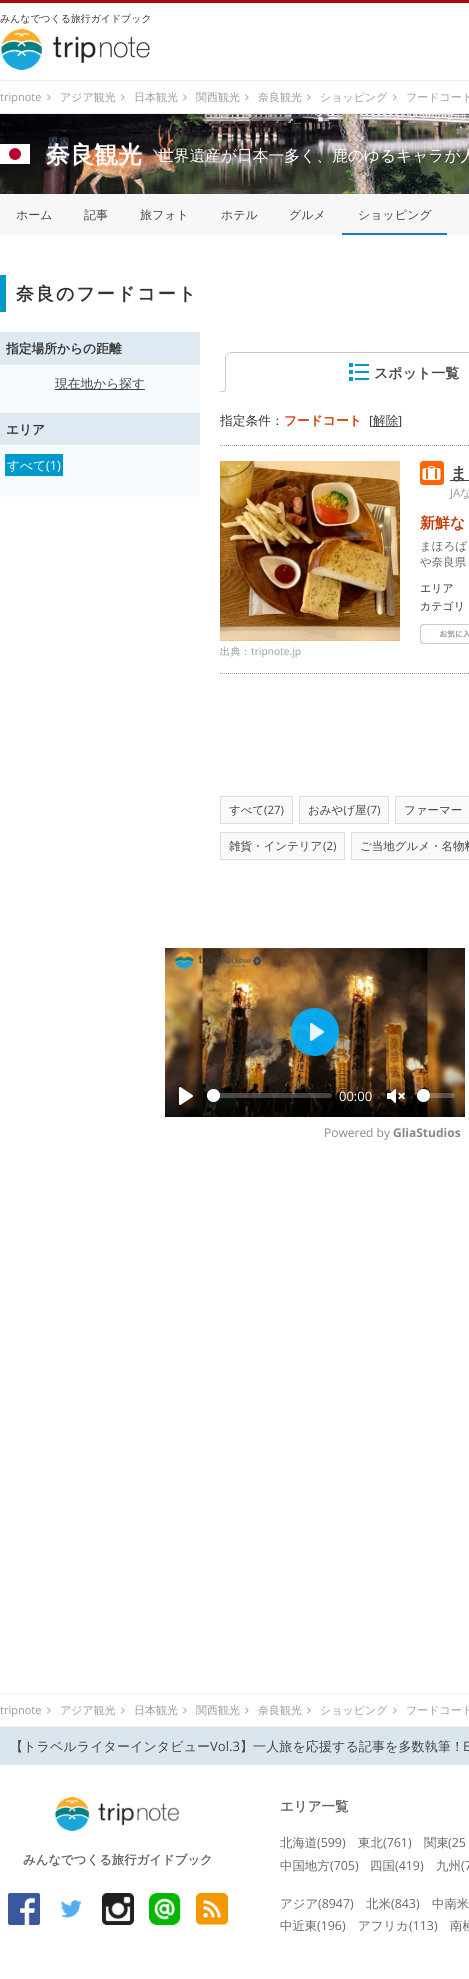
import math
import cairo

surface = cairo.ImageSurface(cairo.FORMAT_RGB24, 469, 1979)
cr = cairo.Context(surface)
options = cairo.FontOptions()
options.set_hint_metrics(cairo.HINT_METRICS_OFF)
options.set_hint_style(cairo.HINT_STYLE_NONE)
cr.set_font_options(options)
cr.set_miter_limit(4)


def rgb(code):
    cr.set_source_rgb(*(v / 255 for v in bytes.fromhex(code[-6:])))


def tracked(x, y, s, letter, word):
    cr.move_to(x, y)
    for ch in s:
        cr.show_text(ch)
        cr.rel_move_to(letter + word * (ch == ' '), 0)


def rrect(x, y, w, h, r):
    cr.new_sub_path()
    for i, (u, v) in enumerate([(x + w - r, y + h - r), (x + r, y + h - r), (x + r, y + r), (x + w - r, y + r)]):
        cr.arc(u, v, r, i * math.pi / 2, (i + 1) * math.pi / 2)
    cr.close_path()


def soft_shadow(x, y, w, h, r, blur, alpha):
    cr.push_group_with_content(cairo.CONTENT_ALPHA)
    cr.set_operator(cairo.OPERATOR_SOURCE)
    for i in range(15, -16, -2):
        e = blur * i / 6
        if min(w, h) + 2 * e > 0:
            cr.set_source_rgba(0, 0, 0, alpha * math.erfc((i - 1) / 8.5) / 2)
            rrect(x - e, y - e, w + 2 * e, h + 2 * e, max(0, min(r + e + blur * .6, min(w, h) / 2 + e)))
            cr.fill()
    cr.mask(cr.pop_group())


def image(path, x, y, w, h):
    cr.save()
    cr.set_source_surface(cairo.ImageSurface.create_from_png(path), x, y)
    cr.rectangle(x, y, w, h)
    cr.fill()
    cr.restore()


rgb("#ffffff")
cr.paint()
rgb("#ad080e")
cr.rectangle(0, 0, 469, 3)
cr.fill()
image("img/1.png", 1, 29, 149, 41)
rgb("#eeeeee")
cr.rectangle(0, 80, 469, 1)
cr.fill()
cr.rectangle(0, 113, 469, 1)
cr.fill()
image("img/2.png", 47, 94, 4, 7)
image("img/2.png", 121, 94, 4, 7)
image("img/2.png", 183, 94, 4, 7)
image("img/2.png", 245, 94, 4, 7)
image("img/2.png", 307, 94, 4, 7)
image("img/2.png", 393, 94, 4, 7)
image("img/3.png", 0, 114, 469, 80)
image("img/4.png", 0, 144, 30, 20)
for x, y, w, h, color in [
    (0, 194, 469, 41, "#f7f7f7"),
    (342, 233, 105, 2, "#1776d9"),
    (0, 275, 6, 37, "#0099cc"),
    (0, 365, 200, 132, "#f8fbfd"),
    (0, 332, 200, 33, "#dee9f4"),
    (55, 389, 90, 1, "#444444"),
    (0, 413, 200, 32, "#dee9f4"),
    (5, 454, 58, 22, "#0099cc"),
    (220, 391, 5, 1, "#cccccc"),
]:
    rgb(color)
    cr.rectangle(x, y, w, h)
    cr.fill()
cr.set_fill_rule(cairo.FILL_RULE_EVEN_ODD)
cr.new_path()
cr.move_to(231, 352)
cr.line_to(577, 352)
cr.curve_to(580, 352, 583, 355, 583, 358)
cr.line_to(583, 391)
cr.line_to(225, 391)
cr.line_to(225, 358)
cr.curve_to(225, 355, 228, 352, 231, 352)
cr.close_path()
cr.move_to(231, 353)
cr.line_to(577, 353)
cr.curve_to(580, 353, 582, 355, 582, 358)
cr.line_to(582, 391)
cr.line_to(226, 391)
cr.line_to(226, 358)
cr.curve_to(226, 355, 228, 353, 231, 353)
cr.close_path()
cr.fill()
image("img/5.png", 349, 363, 20, 18)
rgb("#444444")
cr.rectangle(373, 426, 25, 1)
cr.fill()
cr.new_path()
cr.move_to(220, 445.5)
cr.line_to(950, 445.5)
rgb("#999999")
cr.set_line_width(1)
cr.set_dash([1, 1])
cr.stroke()
cr.new_path()
cr.move_to(220, 673.5)
cr.line_to(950, 673.5)
cr.stroke()
image("img/6.png", 420, 461, 24, 24)
rgb("#444444")
cr.rectangle(450, 480, 19, 1)
cr.fill()
image("img/7.png", 420, 624, 49, 20)
image("img/8.png", 220, 461, 180, 180)
rgb("#f9f9f9")
cr.rectangle(220.5, 796.5, 72, 27)
cr.fill_preserve()
rgb("#dddddd")
cr.set_dash([])
cr.stroke()
rgb("#f9f9f9")
cr.rectangle(299.5, 796.5, 89, 27)
cr.fill_preserve()
rgb("#dddddd")
cr.stroke()
rgb("#f9f9f9")
cr.rectangle(395.5, 796.5, 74, 27)
cr.fill_preserve()
rgb("#dddddd")
cr.stroke()
rgb("#f9f9f9")
cr.rectangle(220.5, 832.5, 124, 27)
cr.fill_preserve()
rgb("#dddddd")
cr.stroke()
rgb("#f9f9f9")
cr.rectangle(351.5, 832.5, 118, 27)
cr.fill_preserve()
rgb("#dddddd")
cr.stroke()
image("img/9.png", 165, 948, 300, 169)
cr.set_source_rgba(0, 0.698, 1, 0.9)
cr.arc(315, 1032, 24, 0, 2 * math.pi)
cr.fill()
image("img/10.png", 310, 1023, 14, 18)
image("img/11.png", 179, 1087, 14, 18)
cr.set_source_rgba(1, 1, 1, 0.25)
rrect(207, 1093, 125, 5, 2.5)
cr.fill()
cr.arc(213.5, 1095.5, 7, 0, 2 * math.pi)
cr.set_source_rgba(0.137, 0.157, 0.184, 0.2)
cr.stroke()
rgb("#23282f")
soft_shadow(207, 1090, 13, 13, 6.5, 0.5, 0.15)
rgb("#ffffff")
cr.arc(213.5, 1095.5, 6.5, 0, 2 * math.pi)
cr.fill()
image("img/12.png", 387, 1089, 18, 14)
cr.set_source_rgba(1, 1, 1, 0.25)
rrect(417, 1093, 38, 5, 2.5)
cr.fill()
cr.arc(423.5, 1095.5, 7, 0, 2 * math.pi)
cr.set_source_rgba(0.137, 0.157, 0.184, 0.2)
cr.stroke()
rgb("#23282f")
soft_shadow(417, 1090, 13, 13, 6.5, 0.5, 0.15)
rgb("#ffffff")
cr.arc(423.5, 1095.5, 6.5, 0, 2 * math.pi)
cr.fill()
rgb("#eeeeee")
cr.rectangle(0, 1693, 469, 1)
cr.fill()
cr.rectangle(0, 1726, 469, 1)
cr.fill()
image("img/2.png", 47, 1707, 4, 7)
image("img/2.png", 121, 1707, 4, 7)
image("img/2.png", 183, 1707, 4, 7)
image("img/2.png", 245, 1707, 4, 7)
image("img/2.png", 307, 1707, 4, 7)
image("img/2.png", 393, 1707, 4, 7)
rgb("#dbe5ee")
cr.rectangle(0, 1727, 469, 38)
cr.fill()
image("img/13.png", 55, 1797, 125, 34)
image("img/14.png", 8, 1893, 32, 32)
image("img/15.png", 60, 1900, 22, 18)
image("img/16.png", 102, 1893, 32, 32)
image("img/17.png", 149, 1893, 32, 32)
image("img/18.png", 196, 1893, 32, 32)
cr.select_font_face("WenQuanYi Zen Hei Medium")
cr.set_font_size(9.9)
rgb("#333333")
cr.move_to(0, 22)
cr.show_text("みんなでつくる旅行ガイドブック")
cr.select_font_face("Open Sans")
cr.set_font_size(11)
rgb("#999999")
cr.move_to(0, 101)
cr.show_text("tripnote")
cr.select_font_face("WenQuanYi Zen Hei Medium")
for x, y, s in [
    (60, 101, "アジア観光"),
    (134, 101, "日本観光"),
    (196, 101, "関西観光"),
    (258, 101, "奈良観光"),
    (320, 101, "ショッピング"),
    (406, 101, "フードコート"),
]:
    cr.move_to(x, y)
    cr.show_text(s)
cr.select_font_face("WenQuanYi Zen Hei", cairo.FONT_SLANT_NORMAL, cairo.FONT_WEIGHT_BOLD)
cr.set_font_size(24)
rgb("#ffffff")
cr.move_to(46, 163)
cr.show_text("奈良観光")
cr.select_font_face("WenQuanYi Zen Hei Medium")
cr.set_font_size(15.75)
cr.move_to(158, 161)
cr.show_text("世界遺産が日本一多く、鹿のゆるキャラが人")
cr.set_font_size(12)
rgb("#444444")
for x, y, s in [
    (16, 219, "ホーム"),
    (84, 219, "記事"),
    (140, 219, "旅フォト"),
    (221, 219, "ホテル"),
    (289, 219, "グルメ"),
    (358, 219, "ショッピング"),
]:
    cr.move_to(x, y)
    cr.show_text(s)
cr.select_font_face("WenQuanYi Zen Hei", cairo.FONT_SLANT_NORMAL, cairo.FONT_WEIGHT_BOLD)
cr.set_font_size(18)
rgb("#333333")
tracked(16, 300, "奈良のフードコート", 2, 0)
cr.set_font_size(12.75)
cr.move_to(6, 353)
cr.show_text("指定場所からの距離")
cr.select_font_face("WenQuanYi Zen Hei Medium")
rgb("#444444")
cr.move_to(55, 388)
cr.show_text("現在地から探す")
cr.select_font_face("WenQuanYi Zen Hei", cairo.FONT_SLANT_NORMAL, cairo.FONT_WEIGHT_BOLD)
rgb("#333333")
cr.move_to(6, 434)
cr.show_text("エリア")
cr.select_font_face("WenQuanYi Zen Hei Medium")
rgb("#ffffff")
cr.move_to(7, 470)
cr.show_text("すべて")
cr.select_font_face("Open Sans")
cr.move_to(46, 470)
cr.show_text("(1)")
cr.select_font_face("WenQuanYi Zen Hei", cairo.FONT_SLANT_NORMAL, cairo.FONT_WEIGHT_BOLD)
cr.set_font_size(14)
rgb("#444444")
cr.move_to(374, 378)
cr.show_text("スポット一覧")
cr.select_font_face("WenQuanYi Zen Hei Medium")
cr.set_font_size(12.75)
rgb("#333333")
cr.move_to(220, 425)
cr.show_text("指定条件：")
cr.select_font_face("WenQuanYi Zen Hei", cairo.FONT_SLANT_NORMAL, cairo.FONT_WEIGHT_BOLD)
rgb("#cc3300")
cr.move_to(284, 425)
cr.show_text("フードコート")
cr.select_font_face("Open Sans")
rgb("#333333")
cr.move_to(369, 425)
cr.show_text("[")
cr.select_font_face("WenQuanYi Zen Hei Medium")
rgb("#444444")
cr.move_to(373, 425)
cr.show_text("解除")
cr.select_font_face("Open Sans")
rgb("#333333")
cr.move_to(398, 425)
cr.show_text("]")
cr.select_font_face("WenQuanYi Zen Hei", cairo.FONT_SLANT_NORMAL, cairo.FONT_WEIGHT_BOLD)
cr.set_font_size(17)
rgb("#444444")
cr.move_to(450, 479)
cr.show_text("ま")
cr.select_font_face("Open Sans")
cr.set_font_size(11.5)
rgb("#999999")
cr.move_to(450, 497)
cr.show_text("JA")
cr.select_font_face("WenQuanYi Zen Hei Medium")
cr.move_to(460, 497)
cr.show_text("な")
cr.select_font_face("WenQuanYi Zen Hei", cairo.FONT_SLANT_NORMAL, cairo.FONT_WEIGHT_BOLD)
cr.set_font_size(15)
rgb("#cc3300")
cr.move_to(420, 528)
cr.show_text("新鮮な")
cr.select_font_face("WenQuanYi Zen Hei Medium")
cr.set_font_size(11.5)
rgb("#666666")
cr.move_to(420, 550)
cr.show_text("まほろば")
cr.move_to(420, 566)
cr.show_text("や奈良県")
cr.set_font_size(11)
rgb("#333333")
cr.move_to(420, 592)
cr.show_text("エリア")
cr.move_to(420, 610)
cr.show_text("カテゴリ")
cr.set_font_size(10.25)
rgb("#999999")
cr.move_to(220, 655)
cr.show_text("出典：")
cr.select_font_face("Open Sans")
cr.move_to(251, 655)
cr.show_text("tripnote.jp")
cr.select_font_face("WenQuanYi Zen Hei Medium")
cr.set_font_size(11.5)
rgb("#444444")
cr.move_to(229, 814)
cr.show_text("すべて")
cr.select_font_face("Open Sans")
cr.move_to(264, 814)
cr.show_text("(27)")
cr.select_font_face("WenQuanYi Zen Hei Medium")
cr.move_to(308, 814)
cr.show_text("おみやげ屋")
cr.select_font_face("Open Sans")
cr.move_to(367, 814)
cr.show_text("(7)")
cr.select_font_face("WenQuanYi Zen Hei Medium")
cr.move_to(404, 814)
cr.show_text("ファーマー")
cr.move_to(229, 850)
cr.show_text("雑貨・インテリア")
cr.select_font_face("Open Sans")
cr.move_to(323, 850)
cr.show_text("(2)")
cr.select_font_face("WenQuanYi Zen Hei Medium")
cr.move_to(360, 850)
cr.show_text("ご当地グルメ・名物料")
cr.select_font_face("Open Sans")
cr.set_font_size(13)
rgb("#ffffff")
cr.move_to(339, 1101)
cr.show_text("00:00")
cr.set_font_size(12)
rgb("#888888")
cr.move_to(324, 1137)
cr.show_text("Powered by")
cr.select_font_face("Open Sans", cairo.FONT_SLANT_NORMAL, cairo.FONT_WEIGHT_BOLD)
cr.move_to(393, 1137)
cr.show_text("GliaStudios")
cr.select_font_face("Open Sans")
cr.set_font_size(11)
rgb("#999999")
cr.move_to(0, 1714)
cr.show_text("tripnote")
cr.select_font_face("WenQuanYi Zen Hei Medium")
for x, y, s in [
    (60, 1714, "アジア観光"),
    (134, 1714, "日本観光"),
    (196, 1714, "関西観光"),
    (258, 1714, "奈良観光"),
    (320, 1714, "ショッピング"),
    (406, 1714, "フードコート"),
]:
    cr.move_to(x, y)
    cr.show_text(s)
cr.set_font_size(13.1)
rgb("#444444")
cr.move_to(10, 1751)
cr.show_text("【トラベルライターインタビュー")
cr.select_font_face("Open Sans")
cr.move_to(210, 1751)
cr.show_text("Vol.3")
cr.select_font_face("WenQuanYi Zen Hei Medium")
cr.move_to(240, 1751)
cr.show_text("】一人旅を応援する記事を多数執筆！")
cr.select_font_face("Open Sans")
cr.move_to(463, 1751)
cr.show_text("E")
cr.select_font_face("WenQuanYi Zen Hei", cairo.FONT_SLANT_NORMAL, cairo.FONT_WEIGHT_BOLD)
cr.set_font_size(12.4)
rgb("#666666")
cr.move_to(23, 1864)
cr.show_text("みんなでつくる旅行ガイドブック")
cr.set_font_size(13.5)
cr.move_to(280, 1811)
cr.show_text("エリア一覧")
cr.select_font_face("WenQuanYi Zen Hei Medium")
cr.set_font_size(12.4)
cr.move_to(280, 1847)
cr.show_text("北海道")
cr.select_font_face("Open Sans")
cr.move_to(317, 1847)
cr.show_text("(599)")
cr.select_font_face("WenQuanYi Zen Hei Medium")
cr.move_to(358, 1847)
cr.show_text("東北")
cr.select_font_face("Open Sans")
cr.move_to(383, 1847)
cr.show_text("(761)")
cr.select_font_face("WenQuanYi Zen Hei Medium")
cr.move_to(424, 1847)
cr.show_text("関東")
cr.select_font_face("Open Sans")
cr.move_to(448, 1847)
cr.show_text("(25")
cr.select_font_face("WenQuanYi Zen Hei Medium")
cr.move_to(280, 1870)
cr.show_text("中国地方")
cr.select_font_face("Open Sans")
cr.move_to(330, 1870)
cr.show_text("(705)")
cr.select_font_face("WenQuanYi Zen Hei Medium")
cr.move_to(370, 1870)
cr.show_text("四国")
cr.select_font_face("Open Sans")
cr.move_to(395, 1870)
cr.show_text("(419)")
cr.select_font_face("WenQuanYi Zen Hei Medium")
cr.move_to(436, 1870)
cr.show_text("九州")
cr.select_font_face("Open Sans")
cr.move_to(461, 1870)
cr.show_text("(7")
cr.select_font_face("WenQuanYi Zen Hei Medium")
cr.move_to(280, 1908)
cr.show_text("アジア")
cr.select_font_face("Open Sans")
cr.move_to(318, 1908)
cr.show_text("(8947)")
cr.select_font_face("WenQuanYi Zen Hei Medium")
cr.move_to(366, 1908)
cr.show_text("北米")
cr.select_font_face("Open Sans")
cr.move_to(391, 1908)
cr.show_text("(843)")
cr.select_font_face("WenQuanYi Zen Hei Medium")
cr.move_to(432, 1908)
cr.show_text("中南米")
cr.move_to(280, 1930)
cr.show_text("中近東")
cr.select_font_face("Open Sans")
cr.move_to(317, 1930)
cr.show_text("(196)")
cr.select_font_face("WenQuanYi Zen Hei Medium")
cr.move_to(358, 1930)
cr.show_text("アフリカ")
cr.select_font_face("Open Sans")
cr.move_to(409, 1930)
cr.show_text("(113)")
cr.select_font_face("WenQuanYi Zen Hei Medium")
cr.move_to(450, 1930)
cr.show_text("南極")
surface.write_to_png("page.png")
